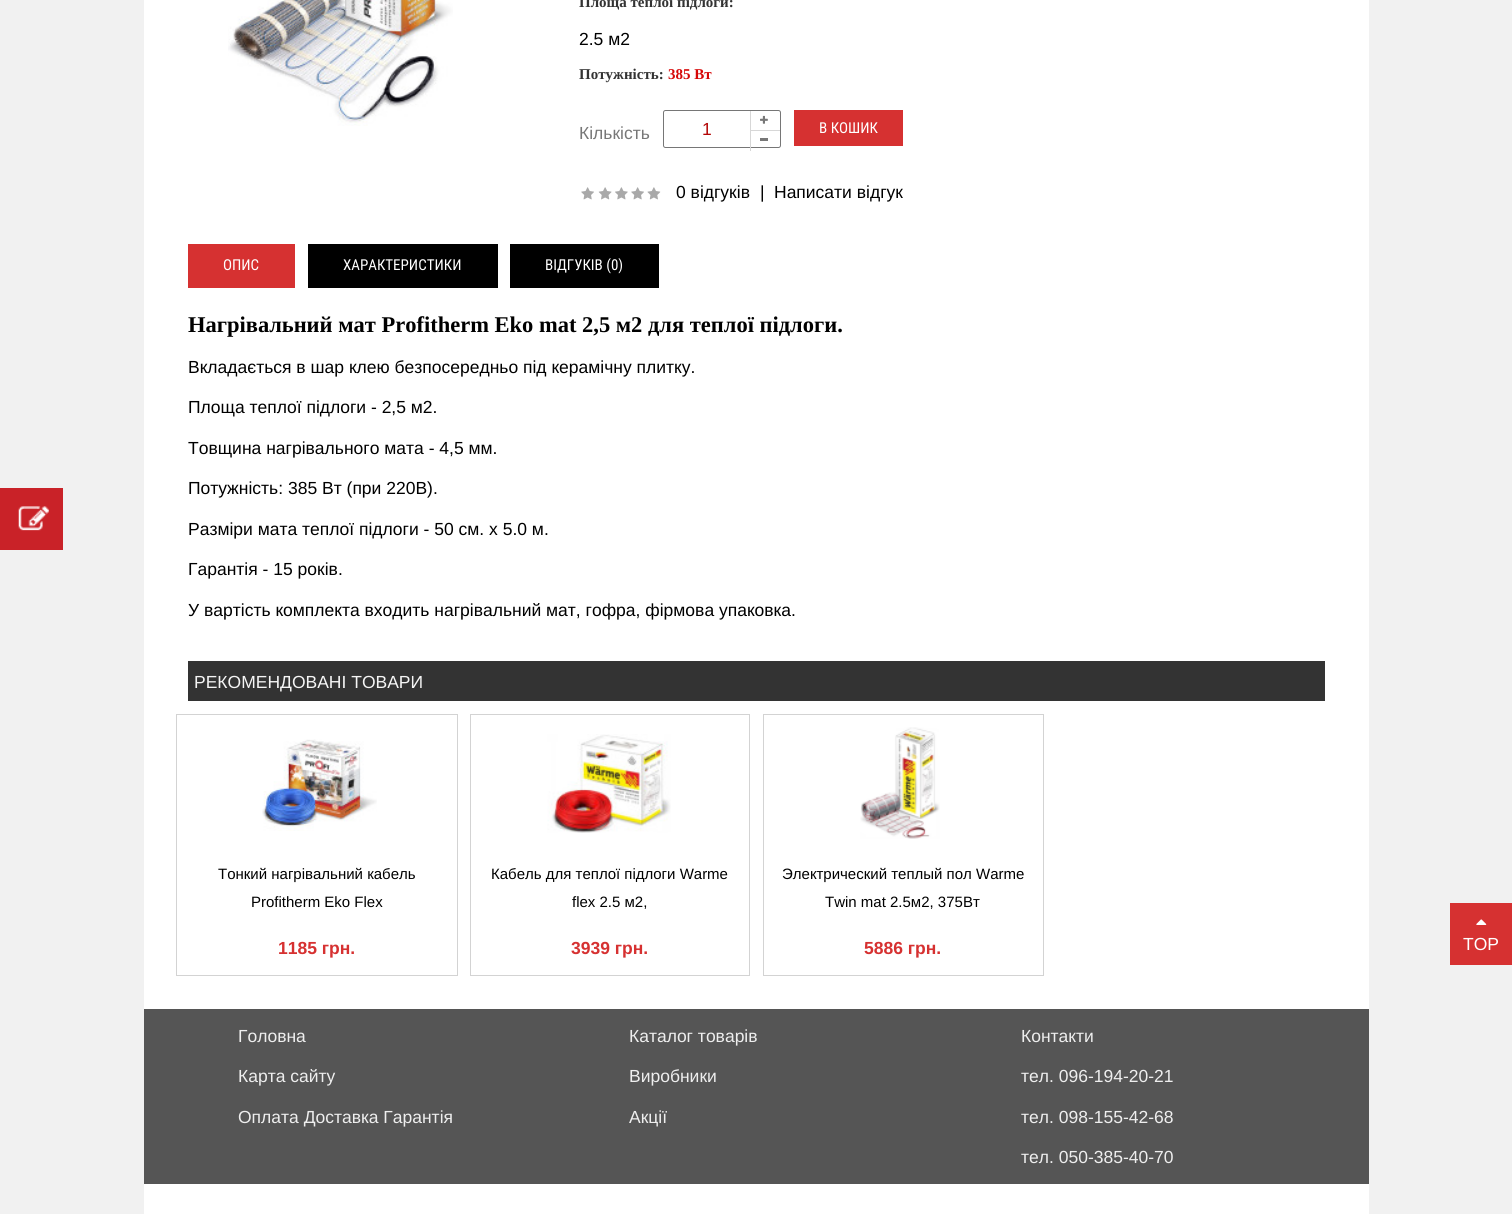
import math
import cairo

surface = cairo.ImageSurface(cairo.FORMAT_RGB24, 1512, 1214)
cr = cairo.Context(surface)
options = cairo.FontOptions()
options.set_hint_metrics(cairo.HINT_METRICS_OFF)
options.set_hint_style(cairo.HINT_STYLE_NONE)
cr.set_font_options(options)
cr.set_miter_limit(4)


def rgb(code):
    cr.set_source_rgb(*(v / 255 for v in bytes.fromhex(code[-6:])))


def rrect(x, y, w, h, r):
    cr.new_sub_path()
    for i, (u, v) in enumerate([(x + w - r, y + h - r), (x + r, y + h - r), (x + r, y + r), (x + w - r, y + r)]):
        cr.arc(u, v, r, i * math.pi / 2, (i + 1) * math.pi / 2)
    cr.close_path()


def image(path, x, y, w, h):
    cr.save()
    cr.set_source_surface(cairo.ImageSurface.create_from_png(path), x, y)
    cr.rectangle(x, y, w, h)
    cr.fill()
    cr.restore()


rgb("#f1f1f1")
cr.paint()
rgb("#c92228")
cr.rectangle(0, 488, 63, 62)
cr.fill()
image("img/1.png", 18, 506, 31, 25)
rgb("#ffffff")
cr.rectangle(144, 0, 1225, 1214)
cr.fill()
image("img/2.png", 228, 0, 225, 126)
rrect(663.5, 110.5, 117, 37, 2)
rgb("#767676")
cr.set_line_width(1)
cr.stroke()
rgb("#d7d7d7")
cr.rectangle(750, 130, 30, 1)
cr.fill()
cr.rectangle(750, 111, 1, 40)
cr.fill()
image("img/3.png", 760, 115, 8, 9)
rgb("#777777")
cr.rectangle(760, 138, 8, 3)
cr.fill()
rgb("#d63131")
cr.rectangle(794, 110, 109, 36)
cr.fill()
image("img/4.png", 581, 187, 13, 13)
image("img/5.png", 598, 187, 14, 13)
image("img/6.png", 615, 187, 13, 13)
image("img/4.png", 631, 187, 13, 13)
image("img/7.png", 647, 187, 14, 13)
for x, y, w, h, color in [
    (188, 244, 107, 44, "#d63131"),
    (308, 244, 190, 44, "#000000"),
    (510, 244, 149, 44, "#000000"),
    (188, 661, 1137, 40, "#333333"),
]:
    rgb(color)
    cr.rectangle(x, y, w, h)
    cr.fill()
cr.rectangle(176.5, 714.5, 281, 261)
rgb("#d3d3d3")
cr.stroke()
image("img/8.png", 262, 739, 115, 92)
cr.rectangle(470.5, 714.5, 279, 261)
cr.stroke()
image("img/9.png", 547, 734, 124, 99)
cr.rectangle(763.5, 714.5, 280, 261)
cr.stroke()
image("img/10.png", 860, 727, 80, 112)
rgb("#555555")
cr.rectangle(144, 1009, 1225, 175)
cr.fill()
rgb("#d63131")
cr.rectangle(1450, 903, 62, 62)
cr.fill()
image("img/11.png", 1476, 919, 11, 6)
cr.select_font_face("Liberation Serif", cairo.FONT_SLANT_NORMAL, cairo.FONT_WEIGHT_BOLD)
cr.set_font_size(15)
rgb("#333333")
cr.move_to(579, 7)
cr.show_text("Площа теплої підлоги:")
cr.select_font_face("Liberation Sans")
cr.set_font_size(17.5)
rgb("#000000")
cr.move_to(579, 45)
cr.show_text("2.5 м2")
cr.select_font_face("Liberation Serif", cairo.FONT_SLANT_NORMAL, cairo.FONT_WEIGHT_BOLD)
cr.set_font_size(15)
rgb("#333333")
cr.move_to(579, 79)
cr.show_text("Потужність:")
rgb("#d60707")
cr.move_to(668, 79)
cr.show_text("385 Вт")
cr.select_font_face("Liberation Sans")
cr.set_font_size(17.5)
rgb("#777777")
cr.move_to(579, 139)
cr.show_text("Кількість")
rgb("#b30505")
cr.move_to(702, 135)
cr.show_text("1")
cr.select_font_face("Roboto Condensed")
cr.set_font_size(15)
rgb("#ffffff")
cr.move_to(819, 133)
cr.show_text("В КОШИК")
cr.select_font_face("Liberation Sans")
cr.set_font_size(17.5)
rgb("#000000")
for x, y, s in [
    (676, 198, "0 відгуків"),
    (760, 198, "|"),
    (774, 198, "Написати відгук"),
]:
    cr.move_to(x, y)
    cr.show_text(s)
cr.select_font_face("Roboto Condensed")
cr.set_font_size(15)
rgb("#ffffff")
for x, y, s in [
    (223, 270, "ОПИС"),
    (343, 270, "ХАРАКТЕРИСТИКИ"),
    (545, 270, "ВІДГУКІВ (0)"),
]:
    cr.move_to(x, y)
    cr.show_text(s)
cr.select_font_face("Liberation Serif", cairo.FONT_SLANT_NORMAL, cairo.FONT_WEIGHT_BOLD)
cr.set_font_size(22.5)
rgb("#000000")
cr.move_to(188, 332)
cr.show_text("Нагрівальний мат Profitherm Eko mat 2,5 м2 для теплої підлоги.")
cr.select_font_face("Liberation Sans")
cr.set_font_size(17.5)
for x, y, s in [
    (188, 373, "Вкладається в шар клею безпосередньо під керамічну плитку."),
    (188, 413, "Площа теплої підлоги - 2,5 м2."),
    (188, 454, "Товщина нагрівального мата - 4,5 мм."),
    (188, 494, "Потужність: 385 Вт (при 220В)."),
    (188, 535, "Разміри мата теплої підлоги - 50 см. х 5.0 м."),
    (188, 575, "Гарантія - 15 років."),
    (188, 616, "У вартість комплекта входить нагрівальний мат, гофра, фірмова упаковка."),
]:
    cr.move_to(x, y)
    cr.show_text(s)
rgb("#f5f5f5")
cr.move_to(194, 688)
cr.show_text("РЕКОМЕНДОВАНІ ТОВАРИ")
cr.set_font_size(15)
rgb("#000000")
cr.move_to(218, 879)
cr.show_text("Тонкий нагрівальний кабель")
cr.move_to(251, 907)
cr.show_text("Profitherm Eko Flex")
cr.select_font_face("Liberation Sans", cairo.FONT_SLANT_NORMAL, cairo.FONT_WEIGHT_BOLD)
cr.set_font_size(17.5)
rgb("#d63131")
cr.move_to(278, 954)
cr.show_text("1185 грн.")
cr.select_font_face("Liberation Sans")
cr.set_font_size(15)
rgb("#000000")
cr.move_to(491, 879)
cr.show_text("Кабель для теплої підлоги Warme")
cr.move_to(572, 907)
cr.show_text("flex 2.5 м2,")
cr.select_font_face("Liberation Sans", cairo.FONT_SLANT_NORMAL, cairo.FONT_WEIGHT_BOLD)
cr.set_font_size(17.5)
rgb("#d63131")
cr.move_to(571, 954)
cr.show_text("3939 грн.")
cr.select_font_face("Liberation Sans")
cr.set_font_size(15)
rgb("#000000")
cr.move_to(782, 879)
cr.show_text("Электрический теплый пол Warme")
cr.move_to(825, 907)
cr.show_text("Twin mat 2.5м2, 375Вт")
cr.select_font_face("Liberation Sans", cairo.FONT_SLANT_NORMAL, cairo.FONT_WEIGHT_BOLD)
cr.set_font_size(17.5)
rgb("#d63131")
cr.move_to(864, 954)
cr.show_text("5886 грн.")
cr.select_font_face("Liberation Sans")
rgb("#eeeeee")
for x, y, s in [
    (238, 1042, "Головна"),
    (238, 1082, "Карта сайту"),
    (238, 1123, "Оплата Доставка Гарантія"),
    (629, 1042, "Каталог товарів"),
    (629, 1082, "Виробники"),
    (629, 1123, "Акції"),
    (1021, 1042, "Контакти"),
    (1021, 1082, "тел. 096-194-20-21"),
    (1021, 1123, "тел. 098-155-42-68"),
    (1021, 1163, "тел. 050-385-40-70"),
]:
    cr.move_to(x, y)
    cr.show_text(s)
rgb("#ffffff")
cr.move_to(1463, 950)
cr.show_text("TOP")
surface.write_to_png("page.png")
